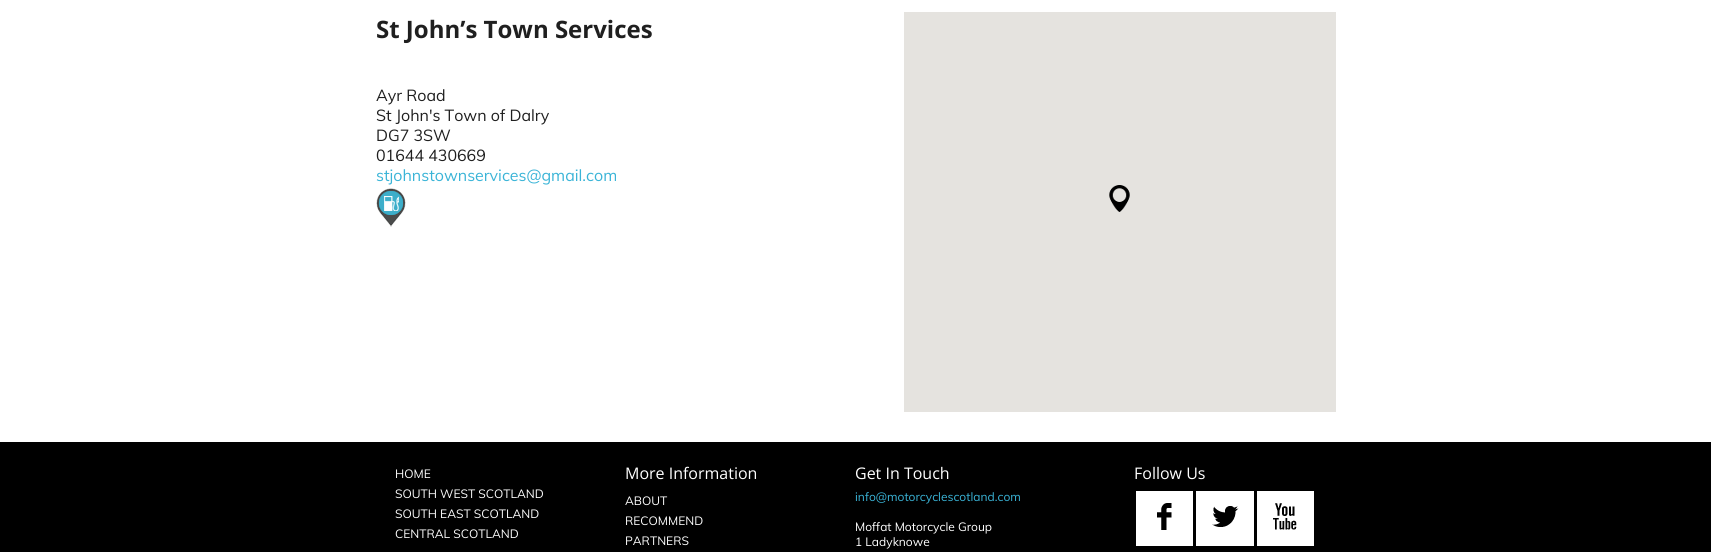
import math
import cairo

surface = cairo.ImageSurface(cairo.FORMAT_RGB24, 1711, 552)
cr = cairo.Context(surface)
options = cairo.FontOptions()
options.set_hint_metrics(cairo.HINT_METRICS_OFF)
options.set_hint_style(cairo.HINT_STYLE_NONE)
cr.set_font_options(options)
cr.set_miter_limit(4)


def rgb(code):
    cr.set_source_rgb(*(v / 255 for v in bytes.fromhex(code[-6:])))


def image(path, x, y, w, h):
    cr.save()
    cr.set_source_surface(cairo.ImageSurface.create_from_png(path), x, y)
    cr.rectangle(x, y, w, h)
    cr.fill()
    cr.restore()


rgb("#ffffff")
cr.paint()
image("img/1.png", 376, 188, 30, 39)
rgb("#e5e3df")
cr.rectangle(904, 12, 432, 400)
cr.fill()
image("img/2.png", 1109, 185, 21, 27)
rgb("#000000")
cr.rectangle(0, 442, 1711, 110)
cr.fill()
rgb("#ffffff")
cr.rectangle(1136, 491, 57, 55)
cr.fill()
image("img/3.png", 1157, 503, 15, 27)
cr.rectangle(1196, 491, 58, 55)
cr.fill()
image("img/4.png", 1212, 506, 27, 21)
cr.rectangle(1257, 491, 57, 55)
cr.fill()
image("img/5.png", 1273, 503, 24, 27)
cr.select_font_face("Open Sans", cairo.FONT_SLANT_NORMAL, cairo.FONT_WEIGHT_BOLD)
cr.set_font_size(24)
rgb("#1f1f1f")
cr.move_to(376, 38)
cr.show_text("St John’s Town Services")
cr.select_font_face("Muli")
cr.set_font_size(16)
for x, y, s in [
    (376, 101, "Ayr Road"),
    (376, 121, "St John's Town of Dalry"),
    (376, 141, "DG7 3SW"),
    (376, 161, "01644 430669"),
]:
    cr.move_to(x, y)
    cr.show_text(s)
rgb("#3ab4d7")
cr.move_to(376, 181)
cr.show_text("stjohnstownservices@gmail.com")
cr.set_font_size(12)
rgb("#ffffff")
for x, y, s in [
    (395, 478, "HOME"),
    (395, 498, "SOUTH WEST SCOTLAND"),
    (395, 518, "SOUTH EAST SCOTLAND"),
    (395, 538, "CENTRAL SCOTLAND"),
]:
    cr.move_to(x, y)
    cr.show_text(s)
cr.select_font_face("Open Sans")
cr.set_font_size(16)
cr.move_to(625, 479)
cr.show_text("More Information")
cr.select_font_face("Muli")
cr.set_font_size(12)
for x, y, s in [
    (625, 505, "ABOUT"),
    (625, 525, "RECOMMEND"),
    (625, 545, "PARTNERS"),
]:
    cr.move_to(x, y)
    cr.show_text(s)
cr.select_font_face("Open Sans")
cr.set_font_size(16)
cr.move_to(855, 479)
cr.show_text("Get In Touch")
cr.select_font_face("Muli")
cr.set_font_size(12)
rgb("#3ab4d7")
cr.move_to(855, 501)
cr.show_text("info@motorcyclescotland.com")
rgb("#ffffff")
cr.move_to(855, 531)
cr.show_text("Moffat Motorcycle Group")
cr.move_to(855, 546)
cr.show_text("1 Ladyknowe")
cr.select_font_face("Open Sans")
cr.set_font_size(16)
cr.move_to(1134, 479)
cr.show_text("Follow Us")
surface.write_to_png("page.png")
